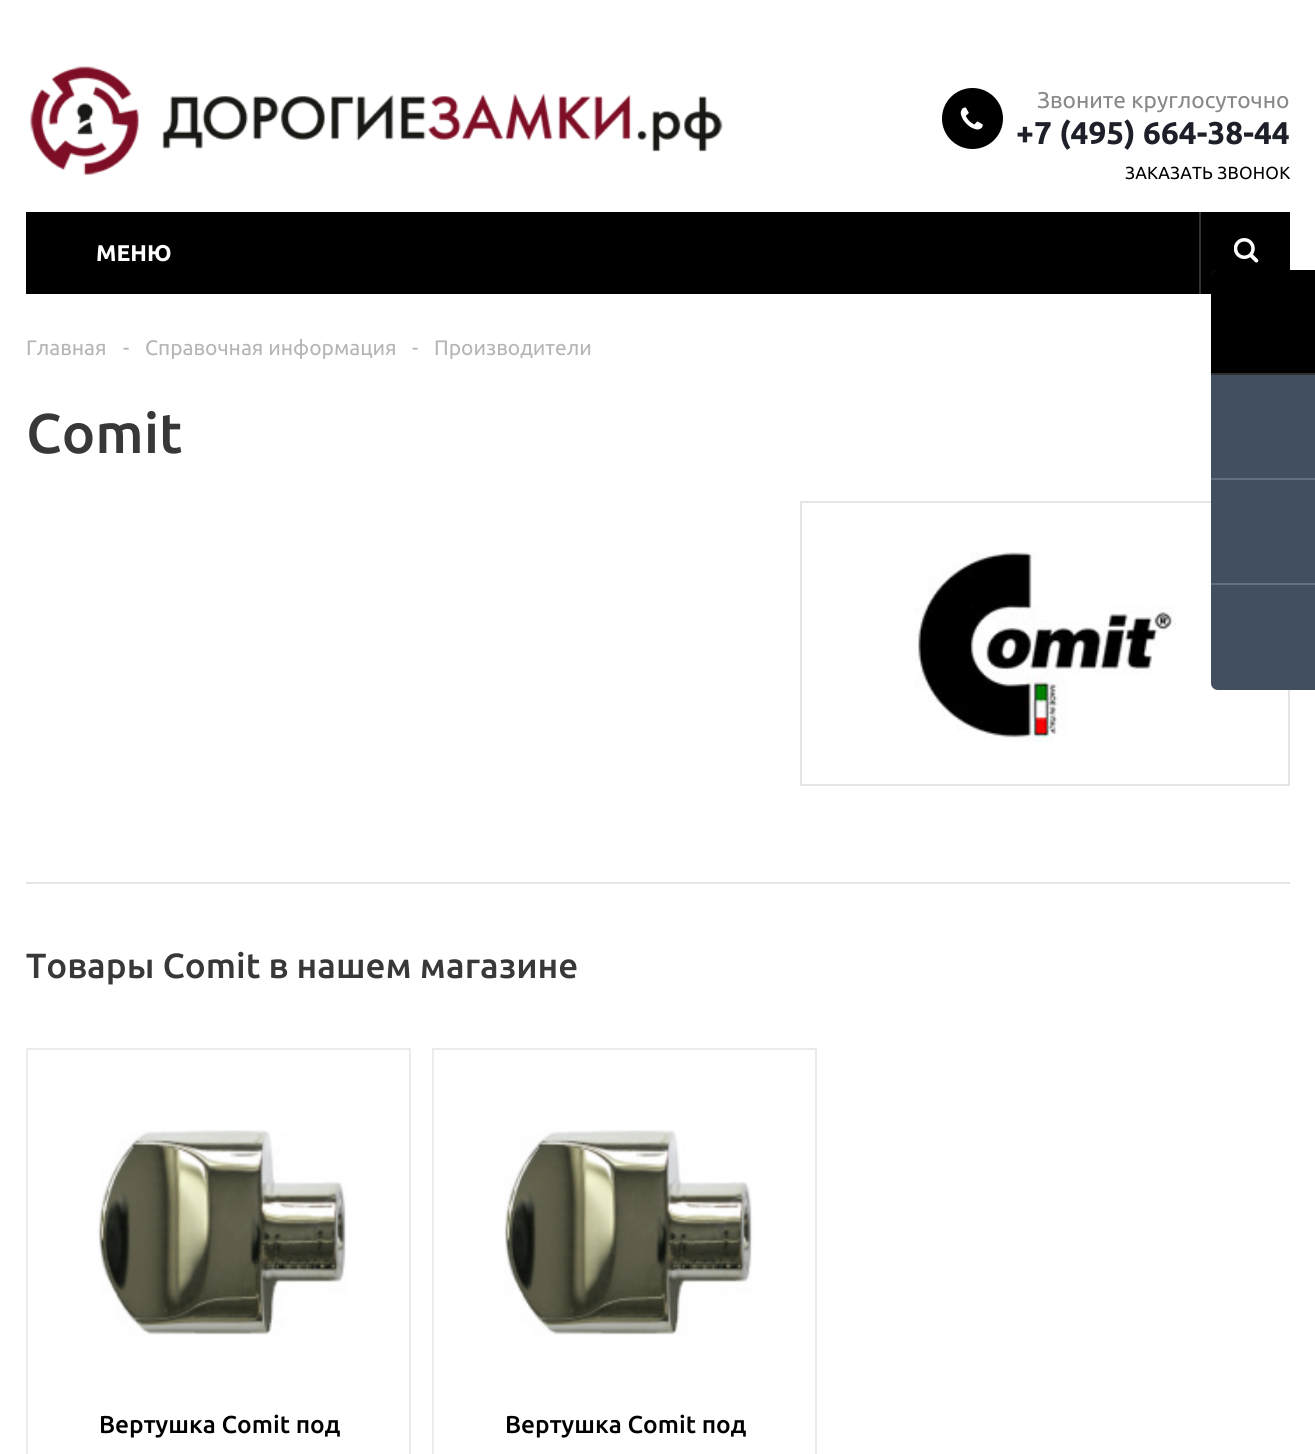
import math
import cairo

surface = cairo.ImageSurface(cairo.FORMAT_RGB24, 1315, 1454)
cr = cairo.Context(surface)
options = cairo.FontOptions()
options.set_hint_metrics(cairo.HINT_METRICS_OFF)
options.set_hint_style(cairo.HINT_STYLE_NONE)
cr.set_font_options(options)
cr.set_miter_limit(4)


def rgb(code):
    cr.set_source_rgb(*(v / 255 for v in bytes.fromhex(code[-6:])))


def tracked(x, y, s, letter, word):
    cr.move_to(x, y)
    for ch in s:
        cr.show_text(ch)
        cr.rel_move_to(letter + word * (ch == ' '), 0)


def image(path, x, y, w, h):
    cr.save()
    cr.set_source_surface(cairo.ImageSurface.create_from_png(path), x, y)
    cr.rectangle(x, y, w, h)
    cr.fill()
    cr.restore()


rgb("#ffffff")
cr.paint()
image("img/1.png", 30, 66, 693, 109)
rgb("#000000")
cr.arc(972.5, 118.5, 30.5, 0, 2 * math.pi)
cr.fill()
image("img/2.png", 960, 107, 23, 23)
cr.rectangle(26, 212, 1264, 82)
cr.fill()
cr.rectangle(801, 502, 488, 283)
rgb("#e5e5e5")
cr.stroke()
rgb("#424f60")
cr.new_path()
cr.move_to(1218, 270)
cr.line_to(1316, 270)
cr.line_to(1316, 690)
cr.line_to(1218, 690)
cr.curve_to(1214, 690, 1211, 687, 1211, 683)
cr.line_to(1211, 277)
cr.curve_to(1211, 273, 1214, 270, 1218, 270)
cr.close_path()
cr.fill()
rgb("#000000")
cr.new_path()
cr.move_to(1218, 270)
cr.line_to(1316, 270)
cr.line_to(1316, 375)
cr.line_to(1211, 375)
cr.line_to(1211, 277)
cr.curve_to(1211, 273, 1214, 270, 1218, 270)
cr.close_path()
cr.fill()
for x, y, w, h, color in [
    (1211, 373, 104, 2, "#2e2f30"),
    (1211, 478, 104, 2, "#636f7d"),
    (1211, 583, 104, 2, "#636f7d"),
    (1199, 212, 2, 82, "#333333"),
]:
    rgb(color)
    cr.rectangle(x, y, w, h)
    cr.fill()
image("img/3.png", 1234, 238, 25, 25)
image("img/4.png", 915, 552, 261, 190)
rgb("#e5e5e5")
cr.rectangle(26, 882, 1264, 2)
cr.fill()
cr.rectangle(27, 1049, 383, 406)
rgb("#eaebec")
cr.stroke()
image("img/5.png", 98, 1130, 249, 205)
cr.rectangle(433, 1049, 383, 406)
cr.stroke()
image("img/5.png", 504, 1130, 249, 205)
cr.select_font_face("Ubuntu")
cr.set_font_size(22.75)
rgb("#888888")
cr.move_to(1037, 108)
cr.show_text("Звоните круглосуточно")
cr.select_font_face("Ubuntu", cairo.FONT_SLANT_NORMAL, cairo.FONT_WEIGHT_BOLD)
cr.set_font_size(31.5)
rgb("#1d2029")
cr.move_to(1016, 144)
cr.show_text("+7 (495) 664-38-44")
cr.select_font_face("Ubuntu")
cr.set_font_size(17.5)
rgb("#000000")
tracked(1125, 179, "ЗАКАЗАТЬ ЗВОНОК", 0.2, 0)
cr.select_font_face("Ubuntu", cairo.FONT_SLANT_NORMAL, cairo.FONT_WEIGHT_BOLD)
cr.set_font_size(22.75)
rgb("#ffffff")
cr.move_to(96, 261)
cr.show_text("МЕНЮ")
cr.select_font_face("Ubuntu")
cr.set_font_size(21)
rgb("#b6b5b5")
for x, y, s in [
    (26, 355, "Главная"),
    (123, 355, "-"),
    (145, 355, "Справочная информация"),
    (412, 355, "-"),
    (434, 355, "Производители"),
]:
    cr.move_to(x, y)
    cr.show_text(s)
cr.select_font_face("Ubuntu Medium")
cr.set_font_size(56)
rgb("#383838")
cr.move_to(26, 453)
cr.show_text("Comit")
cr.set_font_size(35)
cr.move_to(26, 978)
cr.show_text("Товары Comit в нашем магазине")
cr.set_font_size(24.5)
rgb("#000000")
cr.move_to(99, 1433)
cr.show_text("Вертушка Comit под")
cr.move_to(505, 1433)
cr.show_text("Вертушка Comit под")
surface.write_to_png("page.png")
